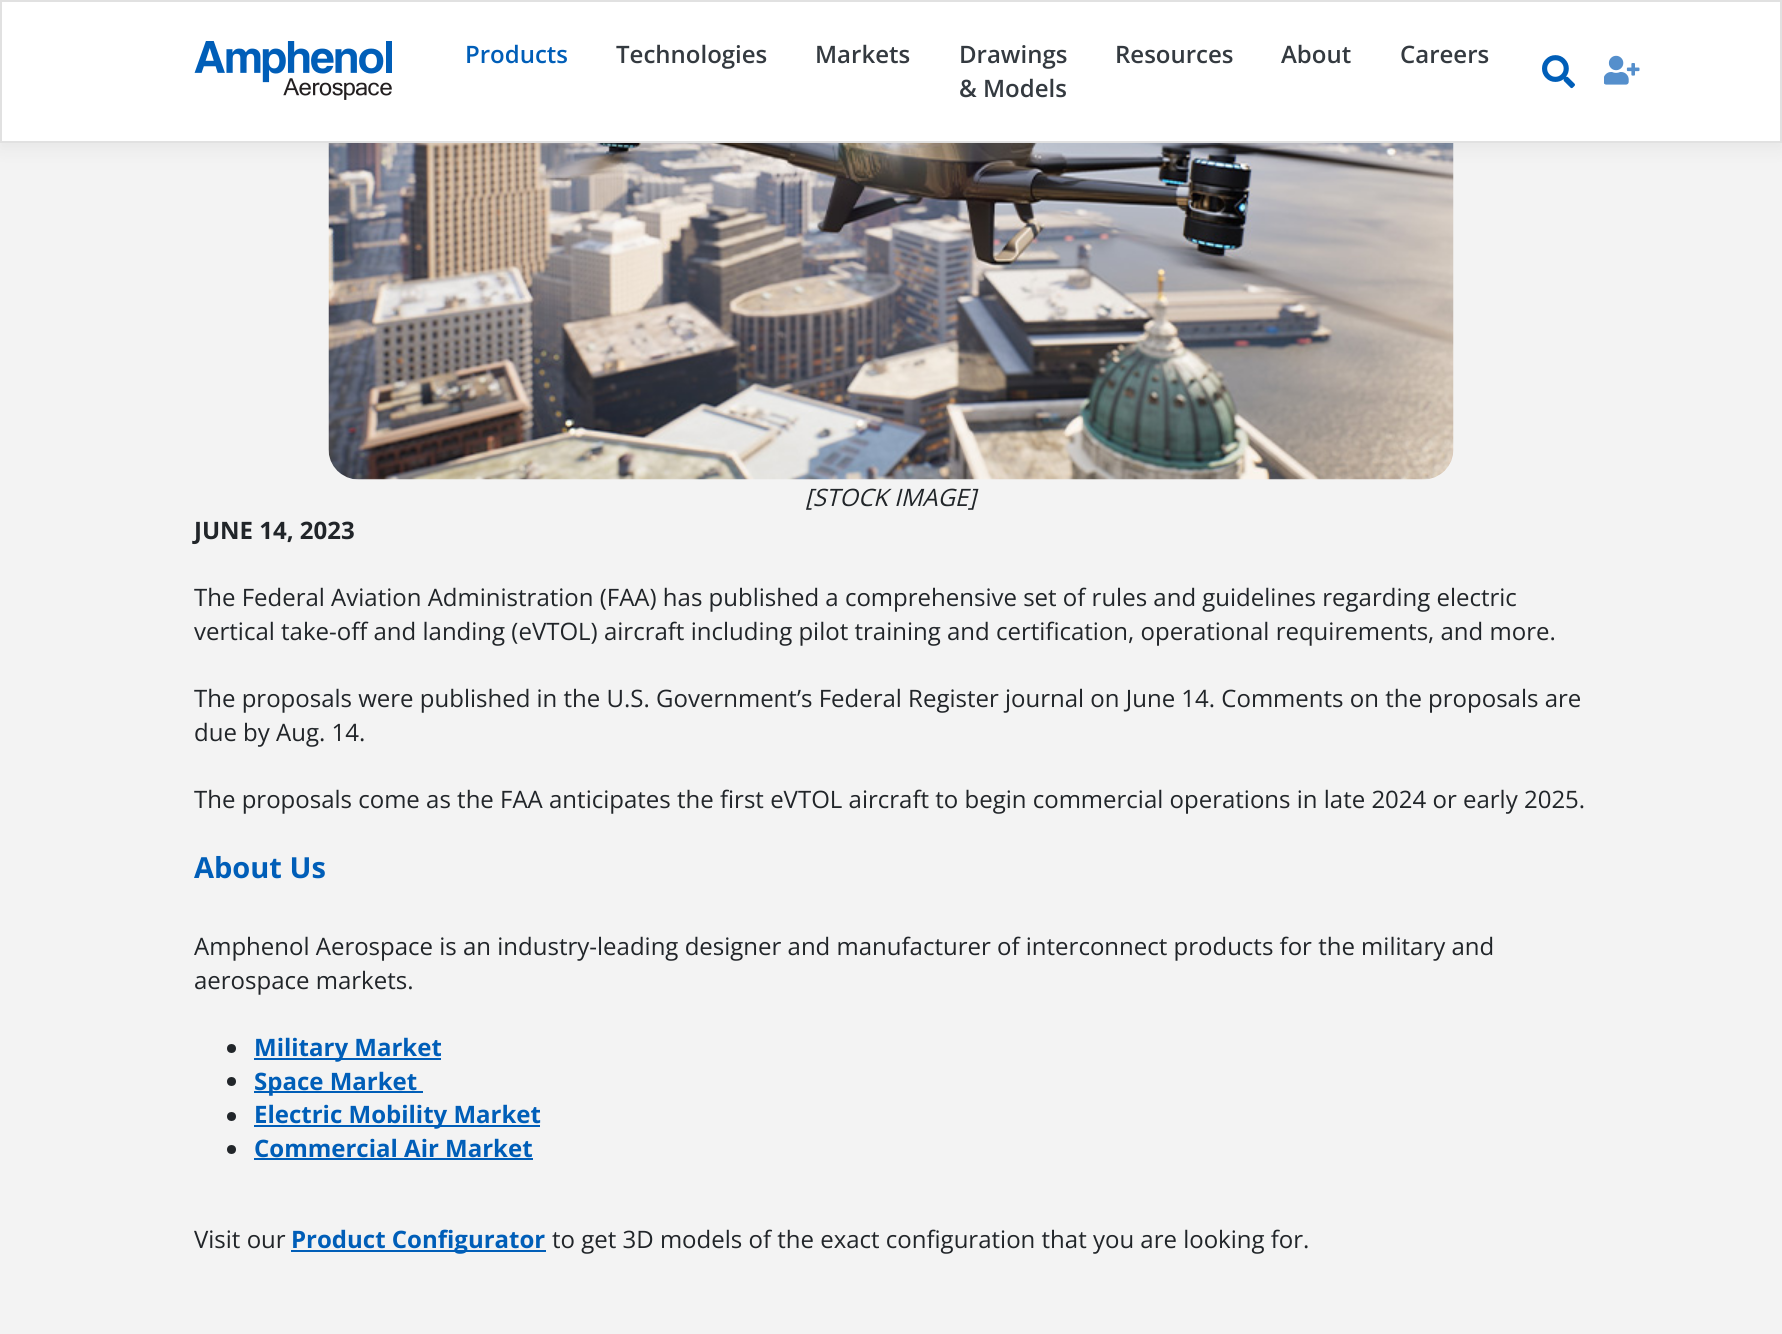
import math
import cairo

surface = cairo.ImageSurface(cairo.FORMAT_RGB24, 1782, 1334)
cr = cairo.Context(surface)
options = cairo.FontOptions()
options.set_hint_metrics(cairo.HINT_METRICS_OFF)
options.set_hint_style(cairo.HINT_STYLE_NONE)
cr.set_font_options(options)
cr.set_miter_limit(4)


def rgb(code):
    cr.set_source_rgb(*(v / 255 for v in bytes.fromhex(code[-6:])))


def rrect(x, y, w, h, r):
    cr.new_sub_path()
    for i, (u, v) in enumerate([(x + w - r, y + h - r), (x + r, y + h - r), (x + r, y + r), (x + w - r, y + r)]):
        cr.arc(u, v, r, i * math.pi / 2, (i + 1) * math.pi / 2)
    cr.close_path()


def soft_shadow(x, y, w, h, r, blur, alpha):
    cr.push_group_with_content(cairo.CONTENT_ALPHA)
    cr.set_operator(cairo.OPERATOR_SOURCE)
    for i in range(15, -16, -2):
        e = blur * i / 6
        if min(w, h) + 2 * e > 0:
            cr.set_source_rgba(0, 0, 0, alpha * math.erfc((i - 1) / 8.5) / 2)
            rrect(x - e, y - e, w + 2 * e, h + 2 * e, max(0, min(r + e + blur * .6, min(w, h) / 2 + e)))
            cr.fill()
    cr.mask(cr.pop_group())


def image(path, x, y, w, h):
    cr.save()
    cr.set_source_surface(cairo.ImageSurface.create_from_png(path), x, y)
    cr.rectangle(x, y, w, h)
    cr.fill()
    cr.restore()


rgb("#f3f3f3")
cr.paint()
image("img/4.png", 328, 143, 1126, 337)
rgb("#000000")
soft_shadow(0, 6, 1782, 143, 0, 9, 0.05)
rgb("#ffffff")
cr.rectangle(1, 1, 1780, 141)
cr.fill_preserve()
rgb("#e1e1e1")
cr.stroke()
image("img/1.png", 194, 41, 198, 59)
image("img/2.png", 1542, 55, 33, 34)
image("img/3.png", 1604, 55, 36, 30)
rgb("#212529")
cr.arc(231.5, 1048.5, 4.5, 0, 2 * math.pi)
cr.fill()
rgb("#005eb8")
cr.rectangle(254, 1058, 187, 2)
cr.fill()
rgb("#212529")
cr.arc(231.5, 1081.5, 4.5, 0, 2 * math.pi)
cr.fill()
rgb("#005eb8")
cr.rectangle(254, 1091, 169, 2)
cr.fill()
rgb("#212529")
cr.arc(231.5, 1116.5, 4.5, 0, 2 * math.pi)
cr.fill()
rgb("#005eb8")
cr.rectangle(254, 1125, 286, 2)
cr.fill()
rgb("#212529")
cr.arc(231.5, 1149.5, 4.5, 0, 2 * math.pi)
cr.fill()
rgb("#005eb8")
cr.rectangle(254, 1158, 279, 2)
cr.fill()
cr.rectangle(291, 1250, 255, 2)
cr.fill()
cr.select_font_face("Open Sans SemiBold")
cr.set_font_size(24)
cr.move_to(465, 63)
cr.show_text("Products")
rgb("#343a40")
for x, y, s in [
    (616, 63, "Technologies"),
    (815, 63, "Markets"),
    (959, 63, "Drawings"),
    (959, 97, "& Models"),
    (1115, 63, "Resources"),
    (1281, 63, "About"),
    (1400, 63, "Careers"),
]:
    cr.move_to(x, y)
    cr.show_text(s)
cr.select_font_face("Open Sans", cairo.FONT_SLANT_ITALIC)
rgb("#212529")
cr.move_to(805, 506)
cr.show_text("[STOCK IMAGE]")
cr.select_font_face("Open Sans", cairo.FONT_SLANT_NORMAL, cairo.FONT_WEIGHT_BOLD)
cr.move_to(194, 539)
cr.show_text("JUNE 14, 2023")
cr.select_font_face("Open Sans")
for x, y, s in [
    (194, 606, "The Federal Aviation Administration (FAA) has published a comprehensive set of rules and guidelines regarding electric"),
    (194, 640, "vertical take-off and landing (eVTOL) aircraft including pilot training and certification, operational requirements, and more."),
    (194, 707, "The proposals were published in the U.S. Government’s Federal Register journal on June 14. Comments on the proposals are"),
    (194, 741, "due by Aug. 14."),
    (194, 808, "The proposals come as the FAA anticipates the first eVTOL aircraft to begin commercial operations in late 2024 or early 2025."),
]:
    cr.move_to(x, y)
    cr.show_text(s)
cr.select_font_face("Open Sans", cairo.FONT_SLANT_NORMAL, cairo.FONT_WEIGHT_BOLD)
cr.set_font_size(29)
rgb("#005eb8")
cr.move_to(194, 878)
cr.show_text("About Us")
cr.select_font_face("Open Sans")
cr.set_font_size(24)
rgb("#212529")
cr.move_to(194, 955)
cr.show_text("Amphenol Aerospace is an industry-leading designer and manufacturer of interconnect products for the military and")
cr.move_to(194, 989)
cr.show_text("aerospace markets.")
cr.select_font_face("Open Sans", cairo.FONT_SLANT_NORMAL, cairo.FONT_WEIGHT_BOLD)
rgb("#005eb8")
for x, y, s in [
    (254, 1056, "Military Market"),
    (254, 1090, "Space Market"),
    (254, 1123, "Electric Mobility Market"),
    (254, 1157, "Commercial Air Market"),
]:
    cr.move_to(x, y)
    cr.show_text(s)
cr.select_font_face("Open Sans")
rgb("#212529")
cr.move_to(194, 1248)
cr.show_text("Visit our")
cr.select_font_face("Open Sans", cairo.FONT_SLANT_NORMAL, cairo.FONT_WEIGHT_BOLD)
rgb("#005eb8")
cr.move_to(291, 1248)
cr.show_text("Product Configurator")
cr.select_font_face("Open Sans")
rgb("#212529")
cr.move_to(552, 1248)
cr.show_text("to get 3D models of the exact configuration that you are looking for.")
surface.write_to_png("page.png")
